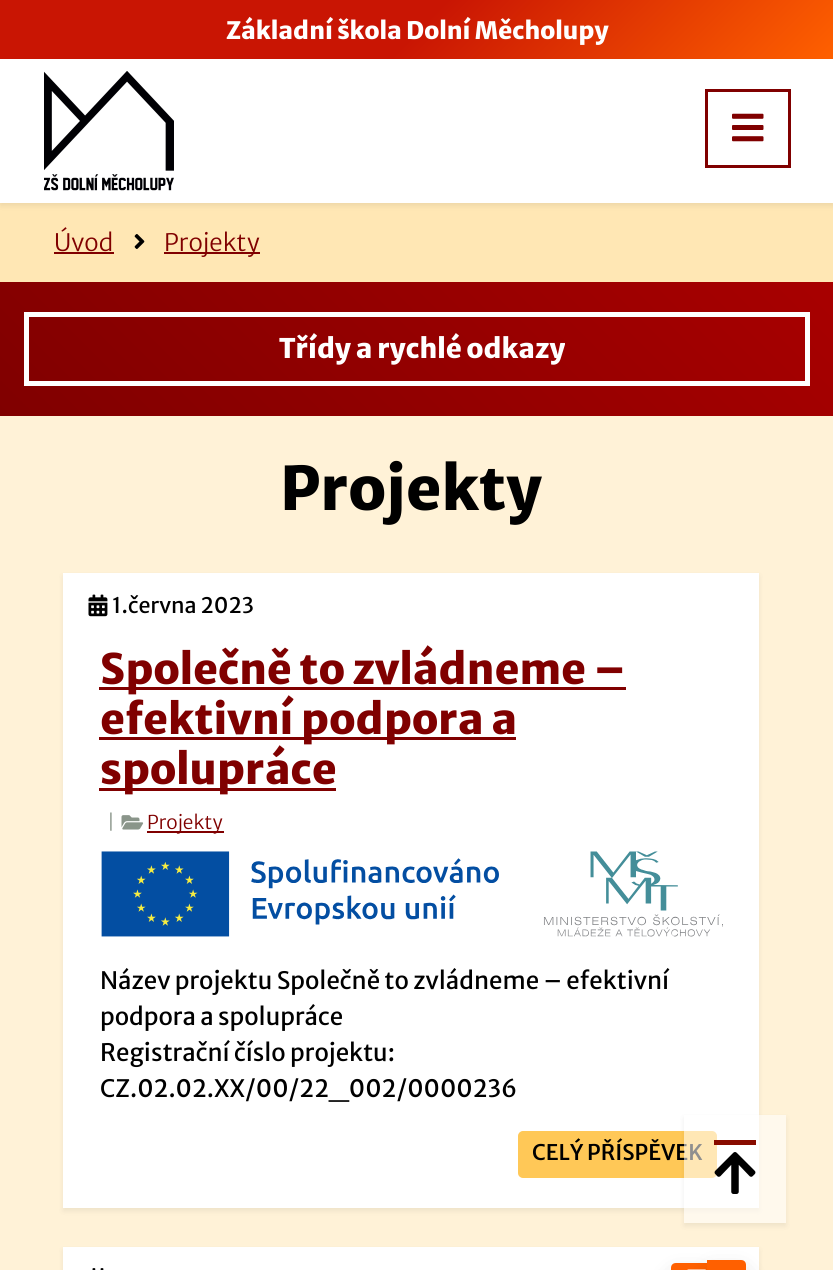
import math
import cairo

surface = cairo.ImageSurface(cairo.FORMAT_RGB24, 833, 1270)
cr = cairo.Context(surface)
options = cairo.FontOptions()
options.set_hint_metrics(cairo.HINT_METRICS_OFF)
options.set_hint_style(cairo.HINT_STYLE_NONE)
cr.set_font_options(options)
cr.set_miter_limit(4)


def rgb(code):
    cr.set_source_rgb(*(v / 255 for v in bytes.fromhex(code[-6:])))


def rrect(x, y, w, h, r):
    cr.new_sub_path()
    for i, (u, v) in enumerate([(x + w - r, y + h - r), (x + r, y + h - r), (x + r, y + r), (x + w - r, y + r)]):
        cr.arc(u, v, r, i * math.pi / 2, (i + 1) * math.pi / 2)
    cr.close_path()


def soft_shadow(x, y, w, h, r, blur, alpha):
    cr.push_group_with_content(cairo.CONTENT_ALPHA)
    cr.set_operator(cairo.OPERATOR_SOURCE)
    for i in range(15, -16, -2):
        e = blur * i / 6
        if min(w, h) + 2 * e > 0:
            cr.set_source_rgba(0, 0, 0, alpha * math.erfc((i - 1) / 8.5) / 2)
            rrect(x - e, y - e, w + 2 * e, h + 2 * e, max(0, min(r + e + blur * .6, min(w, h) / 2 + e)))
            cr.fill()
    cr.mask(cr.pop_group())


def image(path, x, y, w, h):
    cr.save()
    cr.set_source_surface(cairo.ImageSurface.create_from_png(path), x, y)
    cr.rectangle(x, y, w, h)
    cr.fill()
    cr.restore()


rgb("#fff2d7")
cr.paint()
gradient = cairo.LinearGradient(193, -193, 641, 254)
gradient.add_color_stop_rgba(0, 0.788, 0.082, 0.012, 1)
gradient.add_color_stop_rgba(0.5, 0.788, 0.082, 0.012, 1)
gradient.add_color_stop_rgba(1, 1, 0.38, 0, 1)
cr.set_source(gradient)
cr.rectangle(0, 0, 833, 59)
cr.fill()
rgb("#ffe7b4")
cr.rectangle(0, 203, 833, 79)
cr.fill()
rgb("#000000")
soft_shadow(0, 62, 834, 144, 0, 3, 0.07)
rgb("#ffffff")
cr.rectangle(0, 59, 833, 144)
cr.fill()
image("img/1.png", 44, 71, 130, 120)
cr.rectangle(706.5, 90.5, 83, 76)
rgb("#800000")
cr.set_line_width(3)
cr.stroke()
image("img/2.png", 732, 113, 32, 29)
cr.rectangle(54, 252, 60, 2)
cr.fill()
image("img/3.png", 134, 234, 11, 15)
cr.rectangle(164, 252, 96, 2)
cr.fill()
gradient = cairo.LinearGradient(175, 591, 659, 107)
gradient.add_color_stop_rgba(0, 0.502, 0, 0, 1)
gradient.add_color_stop_rgba(1, 0.659, 0, 0, 1)
cr.set_source(gradient)
cr.rectangle(0, 282, 833, 134)
cr.fill()
cr.rectangle(26.5, 314.5, 781, 69)
rgb("#ffffff")
cr.set_line_width(5)
cr.stroke()
rgb("#000000")
soft_shadow(63, 576, 696, 635, 0, 3, 0.07)
rgb("#ffffff")
cr.rectangle(63, 573, 696, 635)
cr.fill()
image("img/4.png", 88, 594, 20, 23)
for x, y, w, h, color in [
    (99, 687, 527, 3, "#800000"),
    (99, 737, 417, 3, "#800000"),
    (99, 788, 237, 3, "#800000"),
]:
    rgb(color)
    cr.rectangle(x, y, w, h)
    cr.fill()
image("img/5.png", 121, 815, 23, 15)
cr.rectangle(147, 831, 77, 2)
cr.fill()
image("img/6.png", 101, 851, 622, 86)
rgb("#ffc857")
rrect(519, 1132, 197, 45, 4)
cr.fill_preserve()
cr.set_line_width(2)
cr.stroke()
rgb("#000000")
soft_shadow(63, 1250, 696, 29, 0, 3, 0.07)
rgb("#ffffff")
cr.rectangle(63, 1247, 696, 23)
cr.fill()
image("img/7.png", 92, 1268, 12, 2)
rgb("#000000")
soft_shadow(671, 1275, 36, 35, 5, 12, 0.15)
rgb("#ff6000")
cr.new_path()
cr.move_to(676, 1263)
cr.line_to(707, 1263)
cr.line_to(707, 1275)
cr.line_to(676, 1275)
cr.curve_to(673, 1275, 671, 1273, 671, 1270)
cr.line_to(671, 1268)
cr.curve_to(671, 1265, 673, 1263, 676, 1263)
cr.close_path()
cr.fill()
rgb("#000000")
soft_shadow(707, 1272, 39, 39, 5, 12, 0.15)
rgb("#ff6000")
cr.new_path()
cr.move_to(707, 1260)
cr.line_to(741, 1260)
cr.curve_to(744, 1260, 746, 1262, 746, 1265)
cr.line_to(746, 1270)
cr.curve_to(746, 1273, 744, 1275, 741, 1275)
cr.line_to(707, 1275)
cr.close_path()
cr.fill()
image("img/8.png", 687, 1269, 19, 1)
cr.save()
cr.set_fill_rule(cairo.FILL_RULE_EVEN_ODD)
cr.new_path()
cr.move_to(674, 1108)
cr.line_to(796, 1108)
cr.line_to(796, 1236)
cr.line_to(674, 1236)
cr.close_path()
cr.move_to(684, 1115)
cr.line_to(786, 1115)
cr.line_to(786, 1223)
cr.line_to(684, 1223)
cr.close_path()
cr.clip()
rgb("#000000")
soft_shadow(684, 1118, 102, 108, 0, 3, 0.07)
cr.restore()
cr.select_font_face("Merriweather Sans ExtraBold")
cr.set_font_size(24)
rgb("#ffffff")
cr.move_to(226, 39)
cr.show_text("Základní škola Dolní Měcholupy")
cr.select_font_face("Merriweather Sans Light")
rgb("#800000")
cr.move_to(54, 251)
cr.show_text("Úvod")
cr.move_to(164, 251)
cr.show_text("Projekty")
cr.select_font_face("Merriweather Sans ExtraBold")
cr.set_font_size(27)
rgb("#ffffff")
cr.move_to(279, 358)
cr.show_text("Třídy a rychlé odkazy")
cr.set_font_size(60)
rgb("#000000")
cr.move_to(280, 510)
cr.show_text("Projekty")
cr.select_font_face("Merriweather Sans")
cr.set_font_size(21.5)
cr.move_to(112, 613)
cr.show_text("1.června 2023")
cr.select_font_face("Merriweather Sans ExtraBold")
cr.set_font_size(42)
rgb("#800000")
for x, y, s in [
    (100, 684, "Společně to zvládneme –"),
    (100, 734, "efektivní podpora a"),
    (100, 784, "spolupráce"),
]:
    cr.move_to(x, y)
    cr.show_text(s)
cr.select_font_face("Merriweather Sans Light")
cr.set_font_size(19)
rgb("#8a958a")
cr.move_to(107, 829)
cr.show_text("|")
rgb("#800000")
cr.move_to(147, 829)
cr.show_text("Projekty")
cr.select_font_face("Merriweather Sans")
cr.set_font_size(24)
rgb("#000000")
for x, y, s in [
    (100, 989, "Název projektu Společně to zvládneme – efektivní"),
    (100, 1025, "podpora a spolupráce"),
    (100, 1061, "Registrační číslo projektu:"),
    (100, 1097, "CZ.02.02.XX/00/22_002/0000236"),
]:
    cr.move_to(x, y)
    cr.show_text(s)
cr.select_font_face("Merriweather Sans Medium")
cr.set_font_size(21.5)
cr.move_to(532, 1160)
cr.show_text("CELÝ PŘÍSPĚVEK")
cr.set_source_rgba(1, 1, 1, 0.56)
cr.rectangle(684, 1115, 102, 108)
cr.fill()
rgb("#880c00")
cr.rectangle(714, 1140, 42, 5)
cr.fill()
image("img/9.png", 714, 1152, 42, 42)
surface.write_to_png("page.png")
